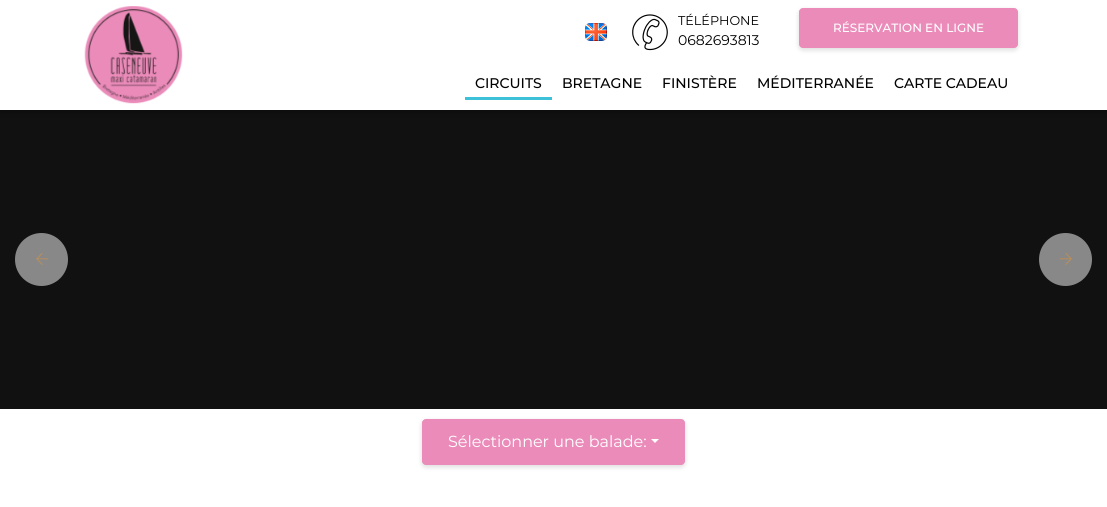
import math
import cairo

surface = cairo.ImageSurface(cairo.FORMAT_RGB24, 1107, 507)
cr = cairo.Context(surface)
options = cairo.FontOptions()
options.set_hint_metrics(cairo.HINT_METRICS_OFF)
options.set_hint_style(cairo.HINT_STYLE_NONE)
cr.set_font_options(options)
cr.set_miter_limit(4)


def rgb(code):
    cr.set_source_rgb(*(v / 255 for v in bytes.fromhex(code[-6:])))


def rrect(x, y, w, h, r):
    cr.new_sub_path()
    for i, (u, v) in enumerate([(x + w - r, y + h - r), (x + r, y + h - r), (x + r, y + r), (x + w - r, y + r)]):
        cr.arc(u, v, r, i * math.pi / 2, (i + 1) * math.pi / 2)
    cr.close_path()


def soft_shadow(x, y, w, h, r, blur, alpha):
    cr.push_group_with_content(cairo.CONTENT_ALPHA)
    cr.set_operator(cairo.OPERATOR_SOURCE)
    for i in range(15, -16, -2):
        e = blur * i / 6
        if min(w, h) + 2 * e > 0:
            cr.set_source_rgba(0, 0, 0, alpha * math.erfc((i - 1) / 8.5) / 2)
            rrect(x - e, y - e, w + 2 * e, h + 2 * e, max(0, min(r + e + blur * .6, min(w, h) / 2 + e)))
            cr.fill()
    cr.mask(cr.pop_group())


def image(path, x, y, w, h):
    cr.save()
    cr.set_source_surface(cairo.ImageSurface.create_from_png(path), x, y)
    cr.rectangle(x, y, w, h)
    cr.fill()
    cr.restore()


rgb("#ffffff")
cr.paint()
rgb("#111111")
cr.rectangle(0, 110, 1107, 299)
cr.fill()
rgb("#000000")
soft_shadow(0, 0, 1107, 110, 0, 5, 0.5)
rgb("#ffffff")
cr.rectangle(0, 0, 1107, 110)
cr.fill()
image("img/1.png", 84, 6, 99, 98)
image("img/2.png", 585, 23, 22, 18)
image("img/3.png", 632, 14, 36, 37)
rgb("#000000")
soft_shadow(799, 10, 219, 40, 4, 2.5, 0.14)
rgb("#ea8bb9")
rrect(799.5, 8.5, 218, 39, 3.5)
cr.fill_preserve()
cr.set_line_width(1)
cr.stroke()
rgb("#3cc1d8")
cr.rectangle(465, 97, 87, 3)
cr.fill()
rgb("#888888")
cr.arc(41.5, 259.5, 26.5, 0, 2 * math.pi)
cr.fill()
image("img/4.png", 36, 253, 13, 12)
cr.arc(1065.5, 259.5, 26.5, 0, 2 * math.pi)
cr.fill()
image("img/5.png", 1059, 253, 13, 12)
rgb("#000000")
soft_shadow(422, 421, 263, 46, 4, 2.5, 0.14)
rgb("#ea8bb9")
rrect(422.5, 419.5, 262, 45, 3.5)
cr.fill_preserve()
cr.stroke()
rgb("#ffffff")
cr.new_path()
cr.move_to(651, 439)
cr.line_to(659, 439)
cr.line_to(655, 443)
cr.close_path()
cr.fill()
cr.select_font_face("Montserrat")
cr.set_font_size(12.75)
rgb("#000000")
cr.move_to(678, 25)
cr.show_text("TÉLÉPHONE")
cr.set_font_size(14)
cr.move_to(678, 45)
cr.show_text("0682693813")
cr.select_font_face("Montserrat Medium")
cr.set_font_size(12)
rgb("#ffffff")
cr.move_to(833, 32)
cr.show_text("RÉSERVATION EN LIGNE")
cr.set_font_size(14)
rgb("#000000")
for x, y, s in [
    (475, 88, "CIRCUITS"),
    (562, 88, "BRETAGNE"),
    (662, 88, "FINISTÈRE"),
    (757, 88, "MÉDITERRANÉE"),
    (894, 88, "CARTE CADEAU"),
]:
    cr.move_to(x, y)
    cr.show_text(s)
cr.select_font_face("Montserrat")
cr.set_font_size(16)
rgb("#ffffff")
cr.move_to(448, 447)
cr.show_text("Sélectionner une balade:")
surface.write_to_png("page.png")
